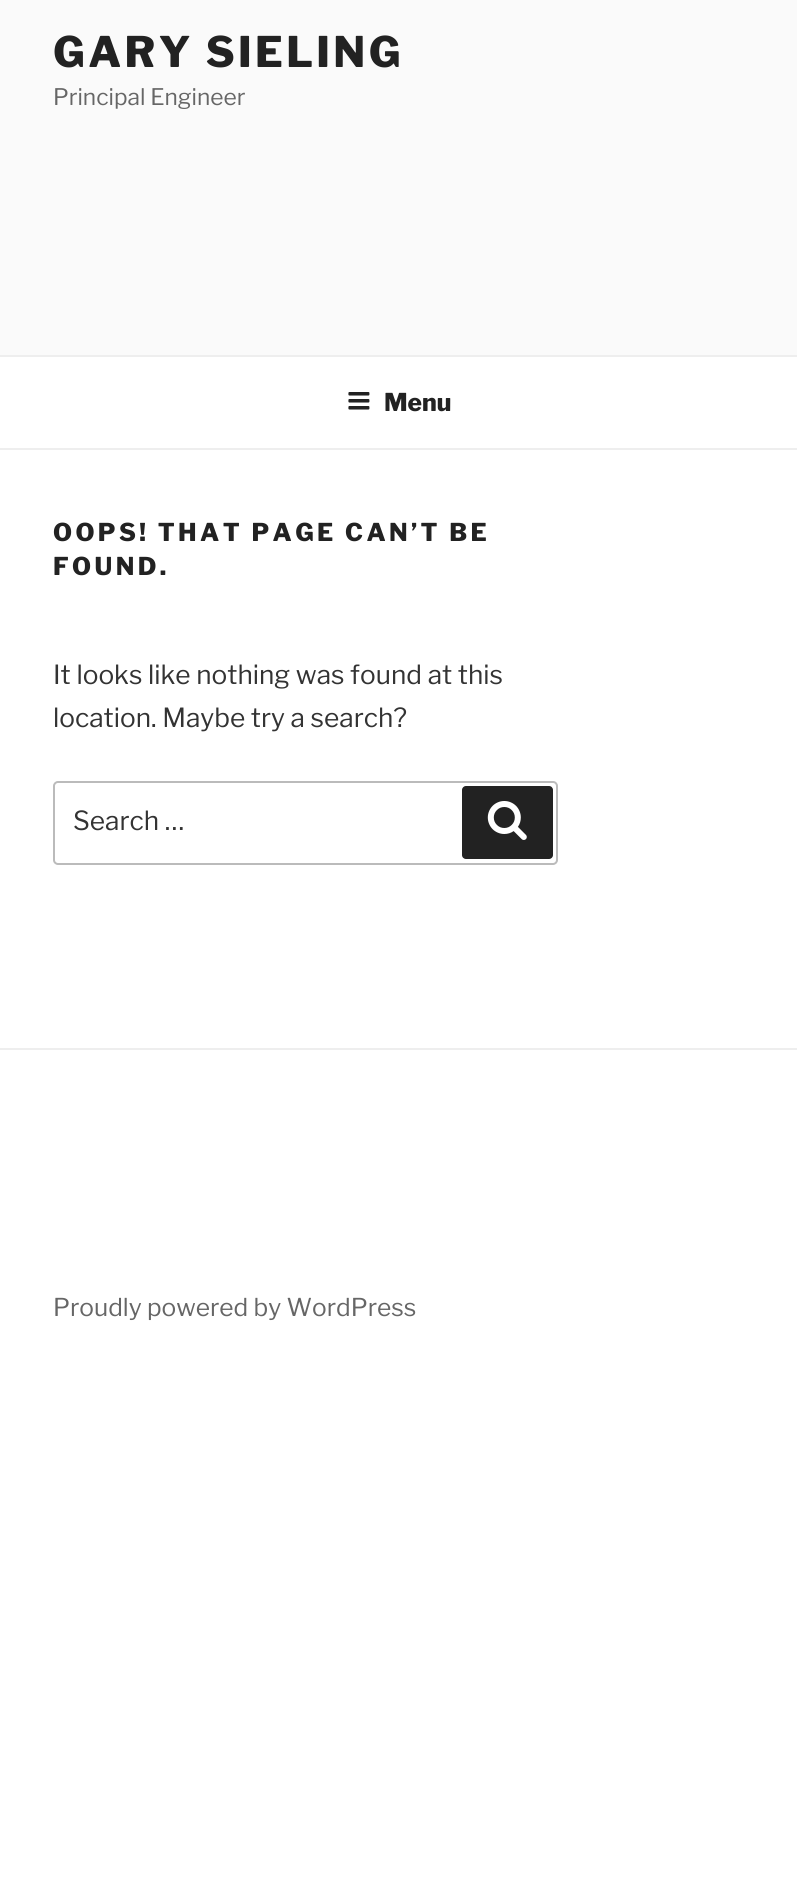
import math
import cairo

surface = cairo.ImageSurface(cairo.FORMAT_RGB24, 797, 1895)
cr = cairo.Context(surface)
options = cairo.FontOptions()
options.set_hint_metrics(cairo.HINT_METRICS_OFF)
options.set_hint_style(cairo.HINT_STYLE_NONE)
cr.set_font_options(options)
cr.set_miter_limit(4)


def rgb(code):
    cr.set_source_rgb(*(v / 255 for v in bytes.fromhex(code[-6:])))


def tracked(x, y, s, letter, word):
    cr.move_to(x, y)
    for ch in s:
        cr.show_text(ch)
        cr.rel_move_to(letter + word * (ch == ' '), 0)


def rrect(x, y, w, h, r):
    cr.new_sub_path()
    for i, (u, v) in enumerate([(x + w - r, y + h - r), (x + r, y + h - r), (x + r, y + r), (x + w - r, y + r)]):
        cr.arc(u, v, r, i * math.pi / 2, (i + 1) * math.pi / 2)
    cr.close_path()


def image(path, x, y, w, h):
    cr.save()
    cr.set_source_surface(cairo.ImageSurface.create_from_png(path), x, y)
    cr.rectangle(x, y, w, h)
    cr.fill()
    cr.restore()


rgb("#ffffff")
cr.paint()
for x, y, w, h, color in [
    (0, 0, 797, 355, "#fafafa"),
    (0, 355, 797, 2, "#eeeeee"),
    (0, 448, 797, 2, "#eeeeee"),
]:
    rgb(color)
    cr.rectangle(x, y, w, h)
    cr.fill()
image("img/1.png", 348, 392, 22, 18)
rrect(54, 782, 503, 82, 4)
rgb("#bbbbbb")
cr.stroke()
rgb("#222222")
rrect(462, 786, 91, 73, 4)
cr.fill()
image("img/2.png", 487, 801, 40, 39)
rgb("#eeeeee")
cr.rectangle(0, 1048, 797, 2)
cr.fill()
cr.select_font_face("Libre Franklin ExtraBold")
cr.set_font_size(42)
rgb("#222222")
tracked(53, 67, "GARY SIELING", 3.4, 0)
cr.select_font_face("Libre Franklin")
cr.set_font_size(22.75)
rgb("#666666")
cr.move_to(53, 105)
cr.show_text("Principal Engineer")
cr.select_font_face("Libre Franklin ExtraBold")
cr.set_font_size(24.5)
rgb("#222222")
cr.move_to(384, 411)
cr.show_text("Menu")
tracked(53, 541, "OOPS! THAT PAGE CAN’T BE", 3.4, 0)
tracked(53, 575, "FOUND.", 3.4, 0)
cr.select_font_face("Libre Franklin")
cr.set_font_size(26.25)
rgb("#333333")
for x, y, s in [
    (53, 684, "It looks like nothing was found at this"),
    (53, 727, "location. Maybe try a search?"),
    (73, 830, "Search …"),
]:
    cr.move_to(x, y)
    cr.show_text(s)
cr.set_font_size(24.5)
rgb("#666666")
cr.move_to(53, 1316)
cr.show_text("Proudly powered by WordPress")
surface.write_to_png("page.png")
